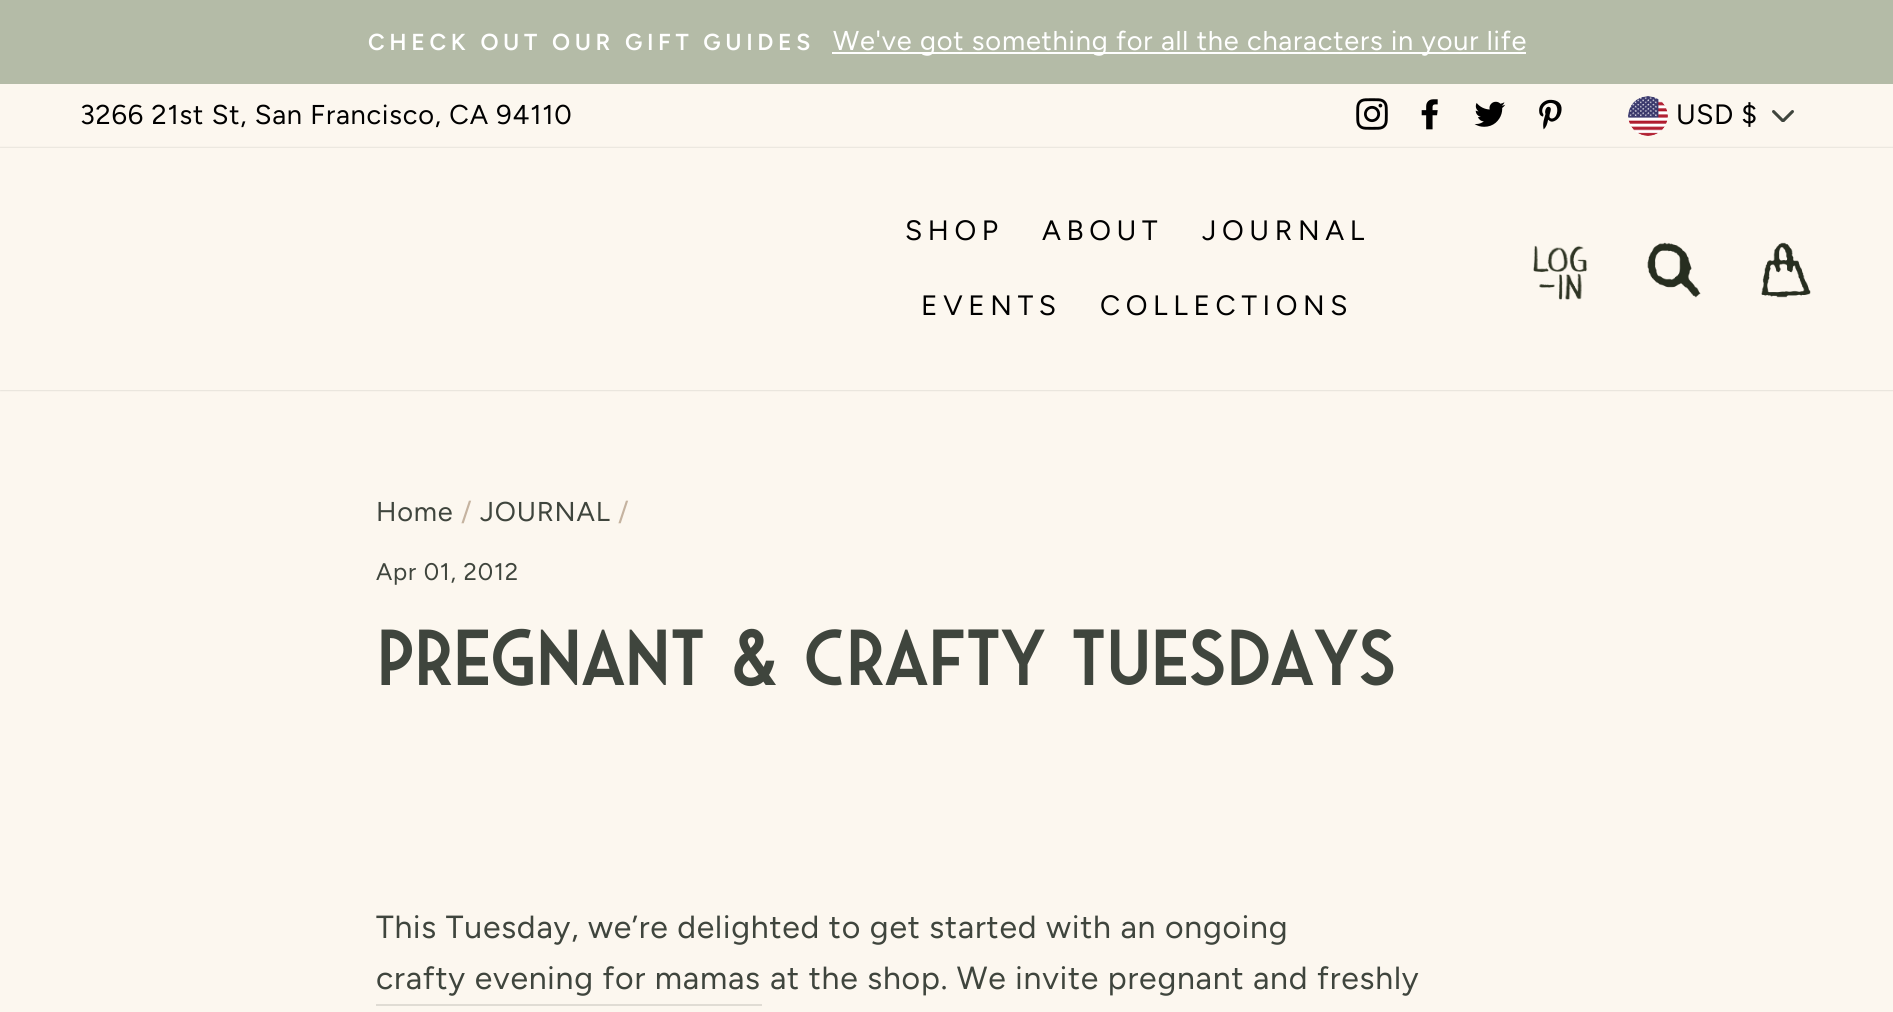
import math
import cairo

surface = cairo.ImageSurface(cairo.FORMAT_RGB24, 1893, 1012)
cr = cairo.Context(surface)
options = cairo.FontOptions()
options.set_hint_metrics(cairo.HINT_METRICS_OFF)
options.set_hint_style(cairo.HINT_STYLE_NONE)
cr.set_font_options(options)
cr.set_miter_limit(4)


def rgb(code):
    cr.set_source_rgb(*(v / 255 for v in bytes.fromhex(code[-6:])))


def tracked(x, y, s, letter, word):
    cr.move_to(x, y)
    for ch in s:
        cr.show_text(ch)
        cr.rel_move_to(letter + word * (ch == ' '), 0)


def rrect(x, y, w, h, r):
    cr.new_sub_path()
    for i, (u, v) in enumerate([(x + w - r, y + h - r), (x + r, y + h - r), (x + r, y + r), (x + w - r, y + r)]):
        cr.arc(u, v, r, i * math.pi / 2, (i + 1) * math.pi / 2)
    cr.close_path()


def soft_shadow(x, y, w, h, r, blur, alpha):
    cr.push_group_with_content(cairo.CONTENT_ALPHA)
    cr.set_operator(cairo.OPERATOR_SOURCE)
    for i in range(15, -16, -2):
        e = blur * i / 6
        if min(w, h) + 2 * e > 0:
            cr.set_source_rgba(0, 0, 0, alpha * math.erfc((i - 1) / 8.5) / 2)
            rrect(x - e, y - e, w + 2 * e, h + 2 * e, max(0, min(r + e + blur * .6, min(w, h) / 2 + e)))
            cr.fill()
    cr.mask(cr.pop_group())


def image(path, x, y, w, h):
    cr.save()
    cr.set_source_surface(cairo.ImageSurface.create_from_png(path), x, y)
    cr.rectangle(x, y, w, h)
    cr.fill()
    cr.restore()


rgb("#fcf7ef")
cr.paint()
rgb("#b4bba7")
cr.rectangle(0, 0, 1893, 84)
cr.fill()
rgb("#ffffff")
cr.rectangle(832, 52, 694, 2)
cr.fill()
image("img/1.png", 1356, 98, 32, 32)
image("img/2.png", 1421, 99, 17, 31)
image("img/3.png", 1474, 101, 32, 26)
image("img/4.png", 1539, 99, 23, 31)
image("img/5.png", 1772, 110, 22, 12)
image("img/6.png", 1628, 96, 40, 40)
cr.save()
cr.set_fill_rule(cairo.FILL_RULE_EVEN_ODD)
cr.new_path()
cr.move_to(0, 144)
cr.line_to(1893, 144)
cr.line_to(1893, 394)
cr.line_to(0, 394)
cr.close_path()
cr.move_to(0, 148)
cr.line_to(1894, 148)
cr.line_to(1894, 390)
cr.line_to(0, 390)
cr.close_path()
cr.clip()
rgb("#000000")
soft_shadow(0, 148, 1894, 242, 0, 1, 0.2)
cr.restore()
image("img/7.png", 1533, 245, 55, 55)
image("img/8.png", 1647, 242, 54, 56)
image("img/9.png", 1761, 242, 50, 56)
rgb("#e0dcd4")
cr.rectangle(376, 1004, 386, 2)
cr.fill()
cr.select_font_face("Figtree SemiBold")
cr.set_font_size(23.1)
rgb("#ffffff")
tracked(368, 50, "CHECK OUT OUR GIFT GUIDES", 4.6, 0)
cr.select_font_face("Figtree")
cr.set_font_size(27.2)
tracked(833, 50, "We've got something for all the characters in your life", 0.8, 0)
rgb("#000000")
tracked(80, 124, "3266 21st St, San Francisco, CA 94110", 0.8, 0)
cr.set_font_size(28)
tracked(1676, 124, "USD $", 0.5, 0)
for x, y, s in [
    (905, 240, "SHOP"),
    (1042, 240, "ABOUT"),
    (1202, 240, "JOURNAL"),
    (921, 315, "EVENTS"),
    (1100, 315, "COLLECTIONS"),
]:
    tracked(x, y, s, 5.6, 0)
cr.set_font_size(27.2)
rgb("#3f453d")
tracked(376, 521, "Home", 0.8, 0)
rgb("#c5b3a0")
tracked(461, 521, "/", 0.8, 0)
rgb("#3f453d")
tracked(480, 521, "JOURNAL", 0.8, 0)
rgb("#c5b3a0")
tracked(618, 521, "/", 0.8, 0)
cr.set_font_size(24)
rgb("#3f453d")
tracked(376, 580, "Apr 01, 2012", 0.8, 0)
cr.select_font_face("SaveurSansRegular", cairo.FONT_SLANT_NORMAL, cairo.FONT_WEIGHT_BOLD)
cr.set_font_size(76)
tracked(376, 685, "Pregnant & Crafty Tuesdays", 1.9, 0)
cr.select_font_face("Figtree")
cr.set_font_size(32)
for x, y, s in [
    (376, 938, "This Tuesday, we’re delighted to get started with an ongoing"),
    (376, 989, "crafty evening for mamas"),
    (770, 989, "at the shop. We invite pregnant and freshly"),
]:
    tracked(x, y, s, 0.8, 0)
surface.write_to_png("page.png")
